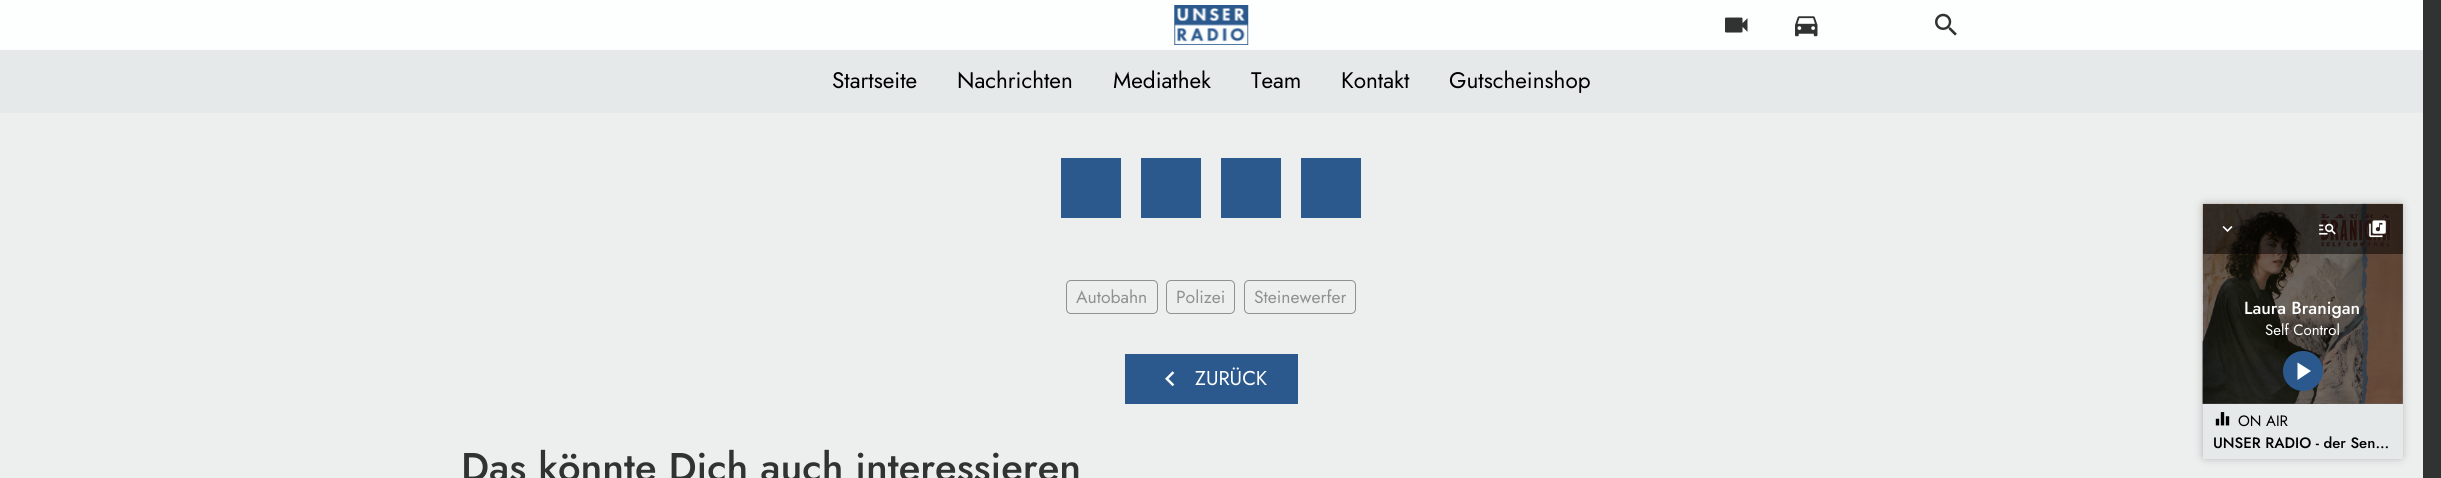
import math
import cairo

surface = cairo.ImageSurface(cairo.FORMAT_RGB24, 2441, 478)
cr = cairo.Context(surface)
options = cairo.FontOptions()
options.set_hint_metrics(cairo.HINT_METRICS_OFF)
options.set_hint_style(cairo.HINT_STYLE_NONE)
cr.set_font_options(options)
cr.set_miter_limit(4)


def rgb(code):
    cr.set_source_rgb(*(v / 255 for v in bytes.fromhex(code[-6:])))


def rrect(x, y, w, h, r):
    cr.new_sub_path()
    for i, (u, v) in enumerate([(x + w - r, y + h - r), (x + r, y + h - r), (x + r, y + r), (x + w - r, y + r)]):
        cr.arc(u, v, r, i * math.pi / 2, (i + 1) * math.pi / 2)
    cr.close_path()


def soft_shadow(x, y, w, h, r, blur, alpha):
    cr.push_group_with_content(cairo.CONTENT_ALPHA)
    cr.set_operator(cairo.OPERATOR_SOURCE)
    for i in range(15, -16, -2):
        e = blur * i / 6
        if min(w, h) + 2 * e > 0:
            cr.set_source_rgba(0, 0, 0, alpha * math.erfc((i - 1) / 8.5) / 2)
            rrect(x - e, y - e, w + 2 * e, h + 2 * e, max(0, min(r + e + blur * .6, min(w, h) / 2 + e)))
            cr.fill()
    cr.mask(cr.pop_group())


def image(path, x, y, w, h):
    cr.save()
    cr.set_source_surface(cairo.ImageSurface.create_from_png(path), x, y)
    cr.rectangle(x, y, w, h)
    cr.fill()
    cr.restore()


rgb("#313333")
cr.paint()
rgb("#fdffff")
cr.rectangle(0, 0, 2423, 50)
cr.fill()
image("img/1.png", 1174, 5, 75, 40)
image("img/2.png", 1725, 17, 23, 16)
image("img/3.png", 1795, 16, 23, 21)
image("img/4.png", 1935, 13, 22, 23)
for x, y, w, h, color in [
    (0, 50, 2423, 63, "#e5e9e9"),
    (0, 113, 2423, 365, "#edefef"),
    (1061, 158, 60, 60, "#2b598e"),
    (1141, 158, 60, 60, "#2b598e"),
    (1221, 158, 60, 60, "#2b598e"),
    (1301, 158, 60, 60, "#2b598e"),
]:
    rgb(color)
    cr.rectangle(x, y, w, h)
    cr.fill()
rrect(1066.5, 280.5, 91, 33, 4.5)
rgb("#8f9191")
cr.set_line_width(1)
cr.stroke()
rrect(1166.5, 280.5, 68, 33, 4.5)
cr.stroke()
rrect(1244.5, 280.5, 111, 33, 4.5)
cr.stroke()
rgb("#2b598e")
cr.rectangle(1125, 354, 173, 50)
cr.fill()
image("img/5.png", 1165, 371, 10, 16)
rgb("#000000")
soft_shadow(2205, 206, 195, 250, 0, 5, 0.4)
rgb("#e8ebeb")
cr.rectangle(2203, 204, 200, 200)
cr.fill()
image("img/9.png", 2202, 203, 201, 201)
cr.set_source_rgba(0, 0, 0, 0.5)
cr.rectangle(2203, 204, 200, 200)
cr.fill()
cr.rectangle(2203, 204, 200, 50)
cr.fill()
image("img/6.png", 2222, 226, 11, 6)
image("img/7.png", 2319, 223, 17, 12)
image("img/8.png", 2369, 220, 17, 18)
rgb("#2b598e")
cr.arc(2303, 371, 20, 0, 2 * math.pi)
cr.fill()
rgb("#ffffff")
cr.new_path()
cr.move_to(2297.5, 362.5)
cr.line_to(2311, 371)
cr.line_to(2297.5, 380)
cr.close_path()
cr.fill()
rgb("#e5e9e9")
cr.rectangle(2203, 404, 200, 55)
cr.fill()
image("img/10.png", 2215, 412, 15, 14)
cr.select_font_face("Jost")
cr.set_font_size(22.5)
rgb("#000000")
for x, y, s in [
    (832, 88, "Startseite"),
    (957, 88, "Nachrichten"),
    (1113, 88, "Mediathek"),
    (1251, 88, "Team"),
    (1341, 88, "Kontakt"),
    (1449, 88, "Gutscheinshop"),
]:
    cr.move_to(x, y)
    cr.show_text(s)
cr.set_font_size(17.5)
rgb("#8f9191")
for x, y, s in [
    (1076, 303, "Autobahn"),
    (1176, 303, "Polizei"),
    (1254, 303, "Steinewerfer"),
]:
    cr.move_to(x, y)
    cr.show_text(s)
cr.set_font_size(20)
rgb("#ffffff")
cr.move_to(1195, 385)
cr.show_text("ZURÜCK")
cr.select_font_face("Jost Medium")
cr.set_font_size(40)
rgb("#313333")
cr.move_to(461, 481)
cr.show_text("Das könnte Dich auch interessieren")
cr.set_font_size(17.5)
rgb("#ffffff")
cr.move_to(2244, 314)
cr.show_text("Laura Branigan")
cr.select_font_face("Jost")
cr.set_font_size(15)
cr.move_to(2265, 335)
cr.show_text("Self Control")
rgb("#000000")
cr.move_to(2238, 426)
cr.show_text("ON AIR")
cr.select_font_face("Jost Medium")
cr.move_to(2213, 448)
cr.show_text("UNSER RADIO - der Sen…")
surface.write_to_png("page.png")
